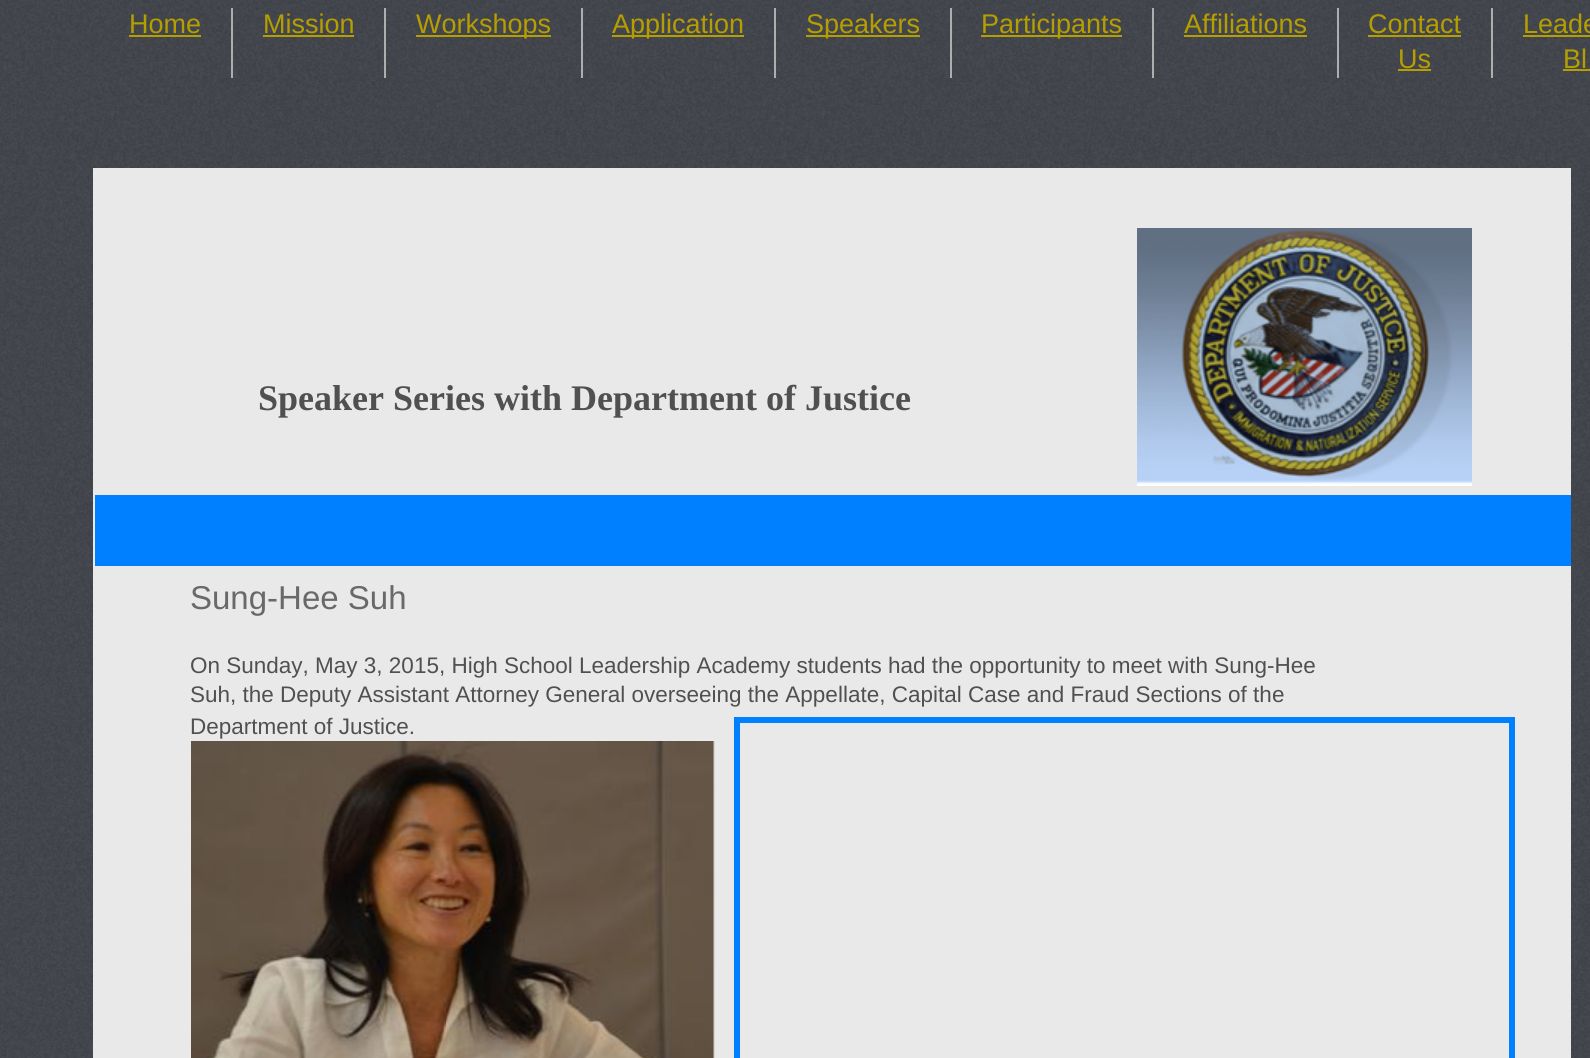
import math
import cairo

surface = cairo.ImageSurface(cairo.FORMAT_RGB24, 1590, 1058)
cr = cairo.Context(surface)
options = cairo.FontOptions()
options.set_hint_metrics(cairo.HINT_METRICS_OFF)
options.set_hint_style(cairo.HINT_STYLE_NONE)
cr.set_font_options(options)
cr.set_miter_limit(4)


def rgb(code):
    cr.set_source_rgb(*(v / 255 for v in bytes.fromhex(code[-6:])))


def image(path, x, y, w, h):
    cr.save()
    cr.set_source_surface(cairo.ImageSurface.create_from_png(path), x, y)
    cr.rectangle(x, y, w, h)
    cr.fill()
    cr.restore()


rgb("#ffffff")
cr.paint()
image("img/1.png", 0, 0, 1590, 1058)
for x, y, w, h, color in [
    (231, 8, 2, 70, "#aeaeae"),
    (129, 35, 72, 2, "#b59e00"),
    (384, 8, 2, 70, "#aeaeae"),
    (263, 35, 91, 2, "#b59e00"),
    (581, 8, 2, 70, "#aeaeae"),
    (416, 35, 135, 2, "#b59e00"),
    (774, 8, 2, 70, "#aeaeae"),
    (612, 35, 132, 2, "#b59e00"),
    (950, 8, 2, 70, "#aeaeae"),
    (806, 35, 114, 2, "#b59e00"),
    (1152, 8, 2, 70, "#aeaeae"),
    (981, 35, 141, 2, "#b59e00"),
    (1337, 8, 2, 70, "#aeaeae"),
    (1184, 35, 123, 2, "#b59e00"),
    (1491, 8, 2, 70, "#aeaeae"),
    (1368, 35, 93, 2, "#b59e00"),
    (1398, 69, 33, 2, "#b59e00"),
    (1523, 35, 67, 2, "#b59e00"),
    (1563, 69, 27, 2, "#b59e00"),
    (93, 168, 1478, 890, "#e9e9e9"),
]:
    rgb(color)
    cr.rectangle(x, y, w, h)
    cr.fill()
image("img/2.png", 1137, 228, 335, 258)
rgb("#007fff")
cr.rectangle(95, 495, 1476, 71)
cr.fill()
image("img/3.png", 191, 741, 524, 317)
cr.rectangle(737, 720, 775, 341)
cr.set_line_width(6)
cr.stroke()
cr.select_font_face("Liberation Sans")
cr.set_font_size(27)
rgb("#b59e00")
for x, y, s in [
    (129, 33, "Home"),
    (263, 33, "Mission"),
    (416, 33, "Workshops"),
    (612, 33, "Application"),
    (806, 33, "Speakers"),
    (981, 33, "Participants"),
    (1184, 33, "Affiliations"),
    (1368, 33, "Contact"),
    (1398, 68, "Us"),
    (1523, 33, "Leade"),
    (1563, 68, "Bl"),
]:
    cr.move_to(x, y)
    cr.show_text(s)
cr.select_font_face("Liberation Serif", cairo.FONT_SLANT_NORMAL, cairo.FONT_WEIGHT_BOLD)
cr.set_font_size(36)
rgb("#505050")
cr.move_to(258, 410)
cr.show_text("Speaker Series with Department of Justice")
cr.select_font_face("Liberation Sans")
cr.set_font_size(33)
rgb("#696969")
cr.move_to(190, 609)
cr.show_text("Sung-Hee Suh")
cr.set_font_size(22.5)
rgb("#505050")
for x, y, s in [
    (190, 673, "On Sunday, May 3, 2015, High School Leadership Academy students had the opportunity to meet with Sung-Hee"),
    (190, 702, "Suh, the Deputy Assistant Attorney General overseeing the Appellate, Capital Case and Fraud Sections of the"),
    (190, 734, "Department of Justice."),
]:
    cr.move_to(x, y)
    cr.show_text(s)
surface.write_to_png("page.png")
